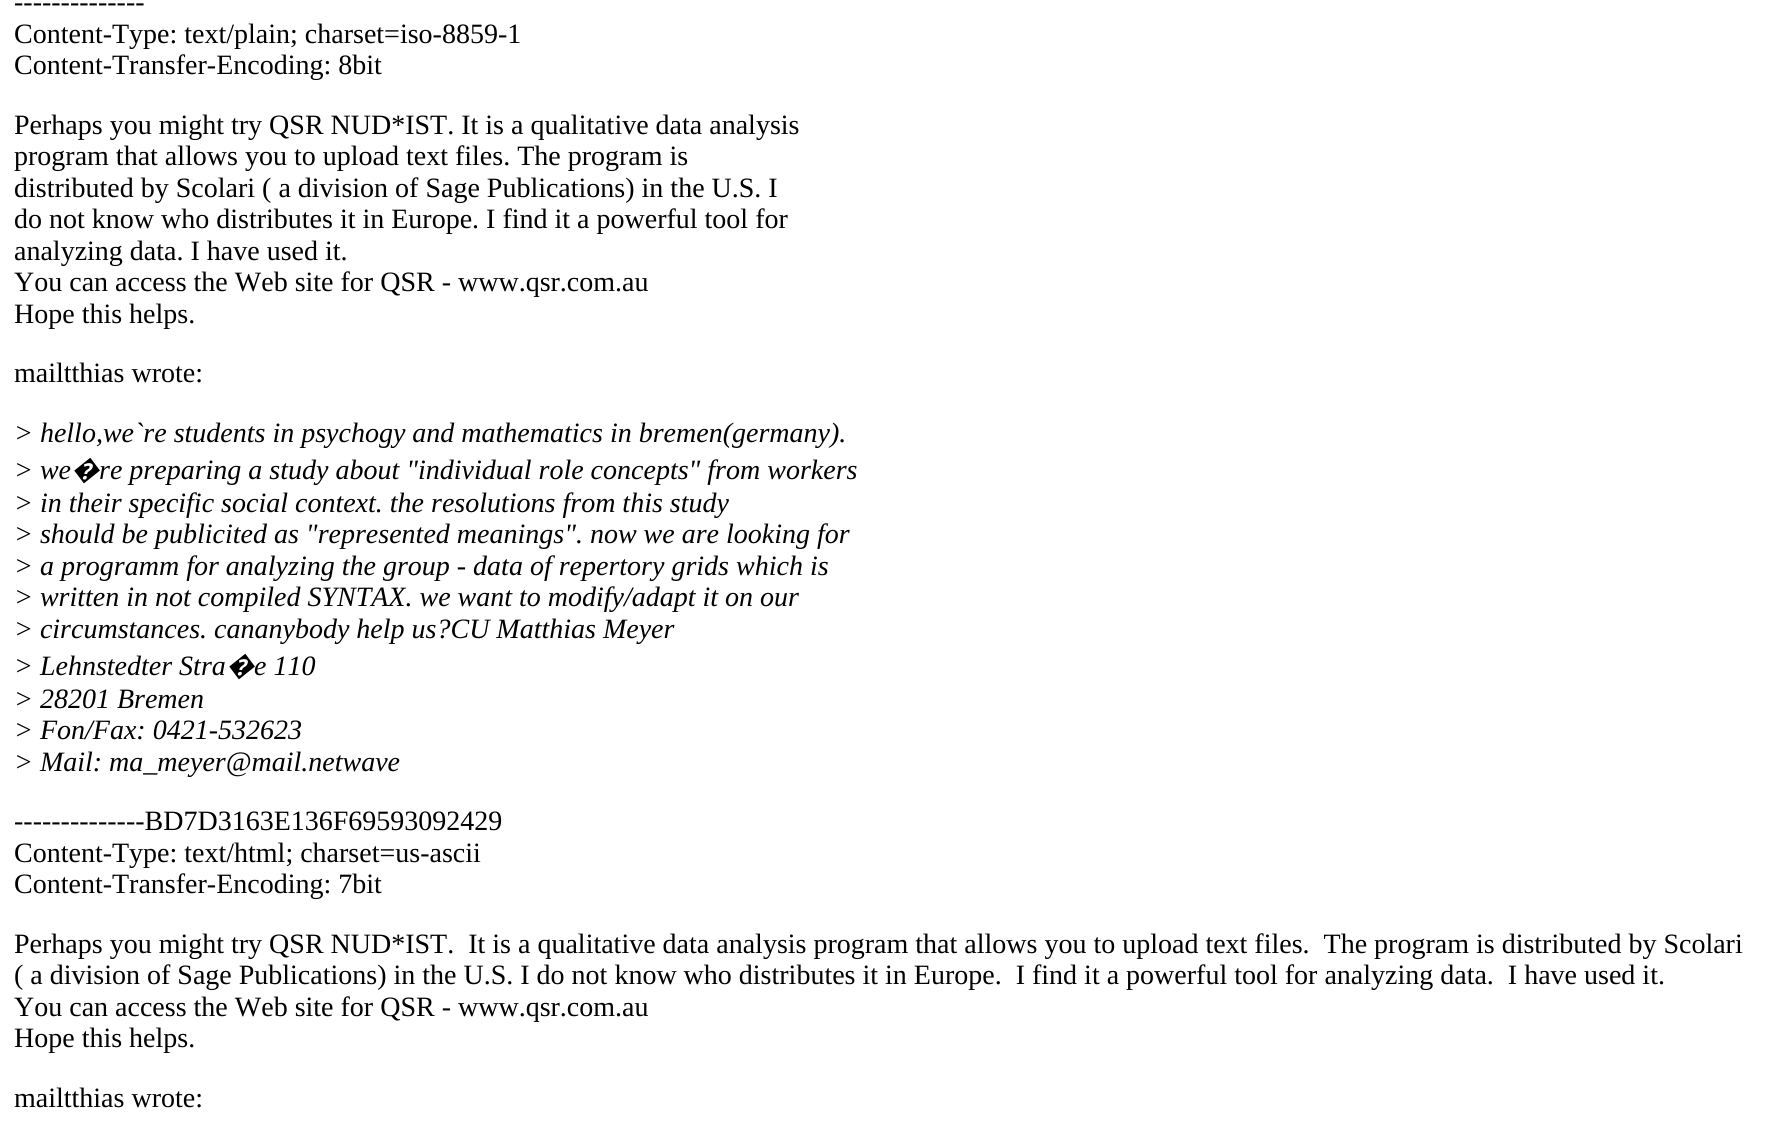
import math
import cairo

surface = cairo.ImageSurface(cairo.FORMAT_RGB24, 1766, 1128)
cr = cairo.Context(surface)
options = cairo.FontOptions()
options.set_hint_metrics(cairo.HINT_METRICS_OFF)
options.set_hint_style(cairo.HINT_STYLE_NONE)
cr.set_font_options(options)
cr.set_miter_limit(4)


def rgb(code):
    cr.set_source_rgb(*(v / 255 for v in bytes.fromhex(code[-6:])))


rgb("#ffffff")
cr.paint()
cr.select_font_face("Liberation Serif")
cr.set_font_size(28)
rgb("#000000")
for x, y, s in [
    (14, 11, "--------------"),
    (14, 43, "Content-Type: text/plain; charset=iso-8859-1"),
    (14, 74, "Content-Transfer-Encoding: 8bit"),
    (14, 134, "Perhaps you might try QSR NUD*IST. It is a qualitative data analysis"),
    (14, 165, "program that allows you to upload text files. The program is"),
    (14, 197, "distributed by Scolari ( a division of Sage Publications) in the U.S. I"),
    (14, 228, "do not know who distributes it in Europe. I find it a powerful tool for"),
    (14, 260, "analyzing data. I have used it."),
    (14, 291, "You can access the Web site for QSR - www.qsr.com.au"),
    (14, 323, "Hope this helps."),
    (14, 382, "mailtthias wrote:"),
]:
    cr.move_to(x, y)
    cr.show_text(s)
cr.select_font_face("Liberation Serif", cairo.FONT_SLANT_ITALIC)
cr.move_to(14, 442)
cr.show_text("> hello,we`re students in psychogy and mathematics in bremen(germany).")
cr.move_to(14, 479)
cr.show_text("> we")
cr.select_font_face("Noto Sans", cairo.FONT_SLANT_ITALIC)
cr.move_to(71, 479)
cr.show_text("�")
cr.select_font_face("Liberation Serif", cairo.FONT_SLANT_ITALIC)
for x, y, s in [
    (99, 479, "re preparing a study about \"individual role concepts\" from workers"),
    (14, 512, "> in their specific social context. the resolutions from this study"),
    (14, 543, "> should be publicited as \"represented meanings\". now we are looking for"),
    (14, 575, "> a programm for analyzing the group - data of repertory grids which is"),
    (14, 606, "> written in not compiled SYNTAX. we want to modify/adapt it on our"),
    (14, 638, "> circumstances. cananybody help us?CU Matthias Meyer"),
    (14, 675, "> Lehnstedter Stra"),
]:
    cr.move_to(x, y)
    cr.show_text(s)
cr.select_font_face("Noto Sans", cairo.FONT_SLANT_ITALIC)
cr.move_to(226, 675)
cr.show_text("�")
cr.select_font_face("Liberation Serif", cairo.FONT_SLANT_ITALIC)
for x, y, s in [
    (254, 675, "e 110"),
    (14, 708, "> 28201 Bremen"),
    (14, 739, "> Fon/Fax: 0421-532623"),
    (14, 771, "> Mail: ma_meyer@mail.netwave"),
]:
    cr.move_to(x, y)
    cr.show_text(s)
cr.select_font_face("Liberation Serif")
for x, y, s in [
    (14, 830, "--------------BD7D3163E136F69593092429"),
    (14, 862, "Content-Type: text/html; charset=us-ascii"),
    (14, 893, "Content-Transfer-Encoding: 7bit"),
    (14, 953, "Perhaps you might try QSR NUD*IST.  It is a qualitative data analysis program that allows you to upload text files.  The program is distributed by Scolari"),
    (14, 984, "( a division of Sage Publications) in the U.S. I do not know who distributes it in Europe.  I find it a powerful tool for analyzing data.  I have used it."),
    (14, 1016, "You can access the Web site for QSR - www.qsr.com.au"),
    (14, 1047, "Hope this helps."),
    (14, 1107, "mailtthias wrote:"),
]:
    cr.move_to(x, y)
    cr.show_text(s)
surface.write_to_png("page.png")
